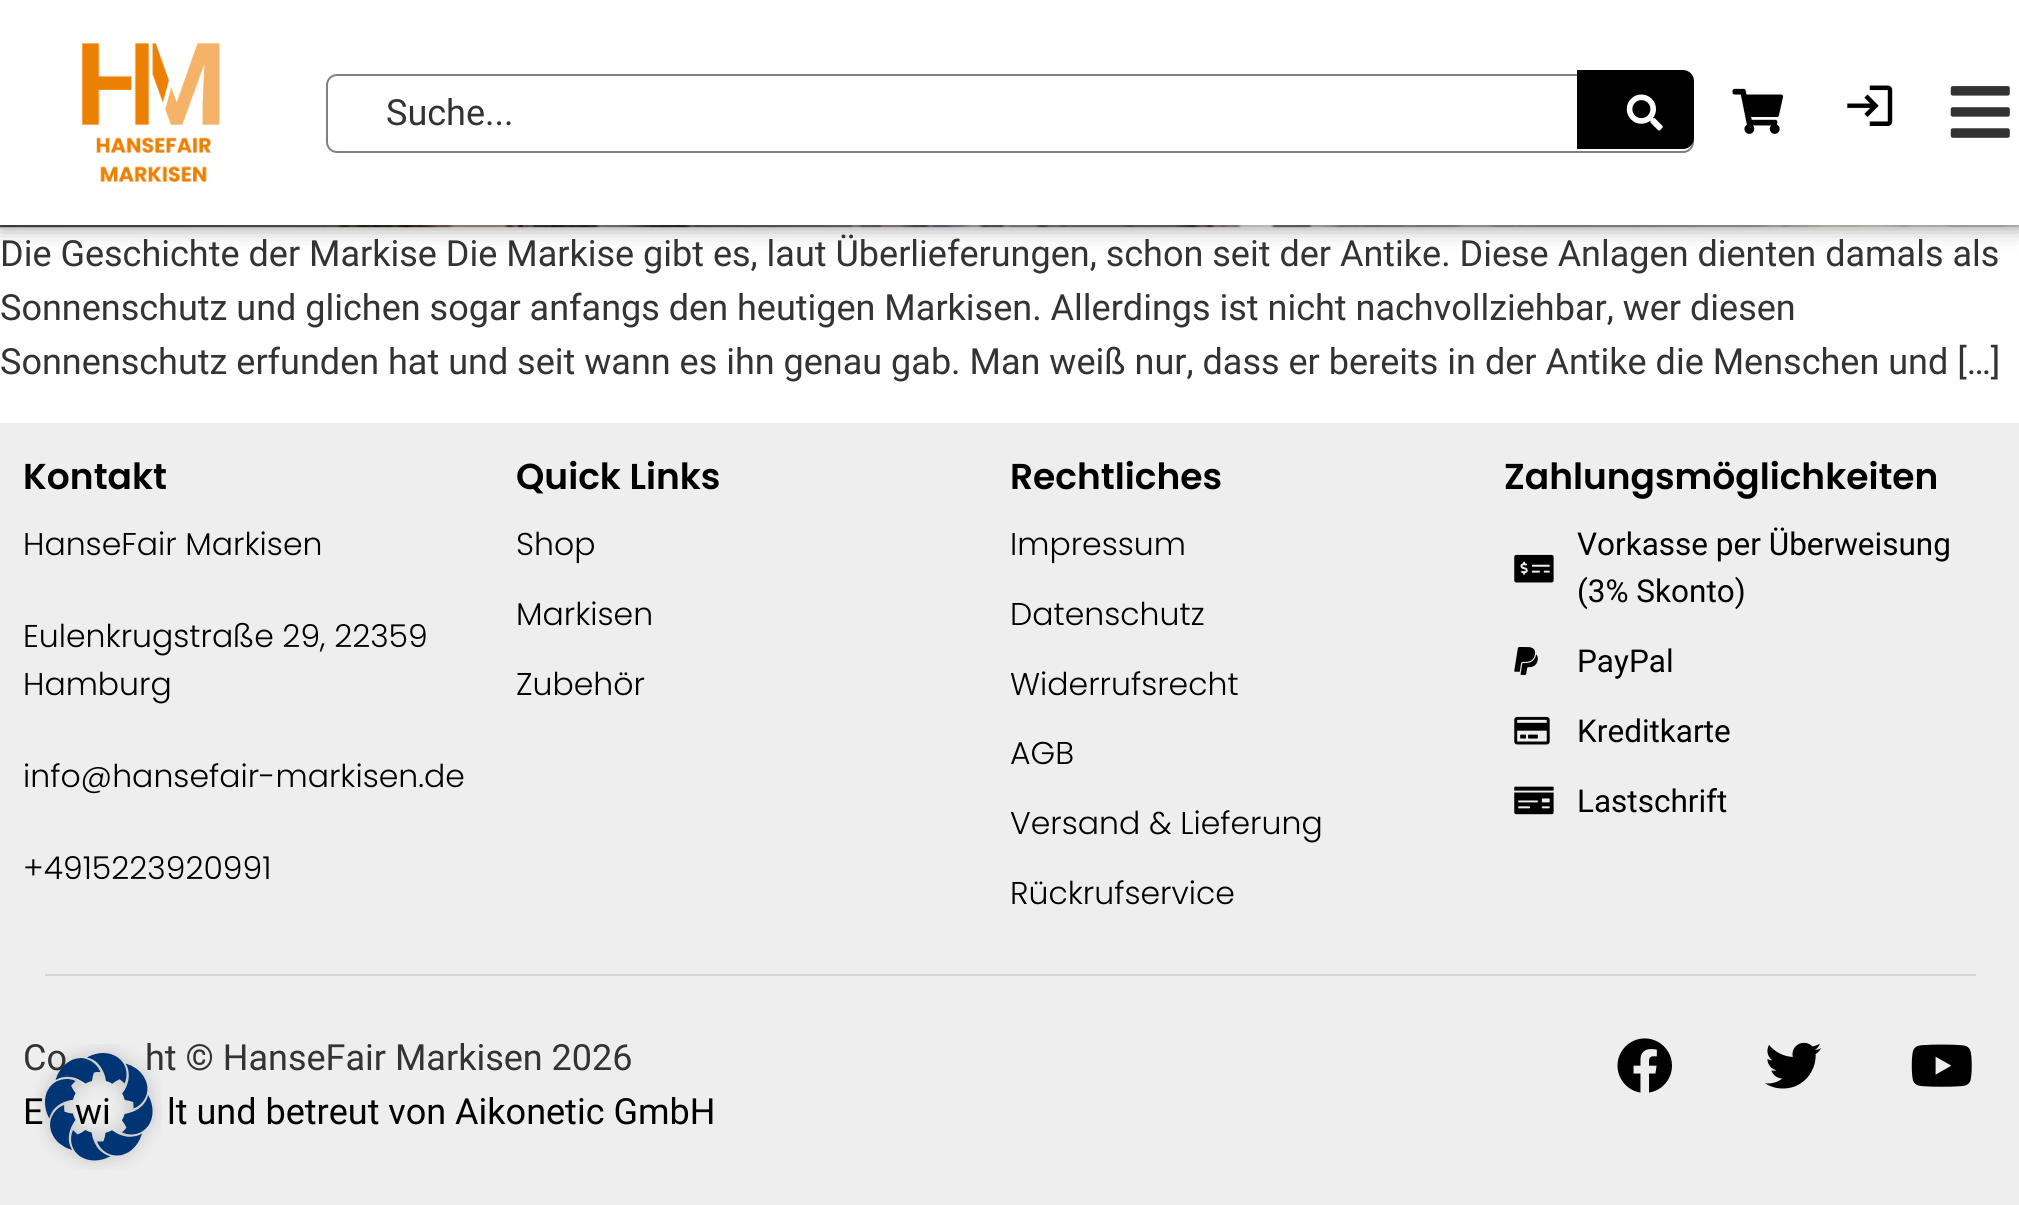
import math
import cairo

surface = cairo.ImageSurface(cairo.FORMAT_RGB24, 2019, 1205)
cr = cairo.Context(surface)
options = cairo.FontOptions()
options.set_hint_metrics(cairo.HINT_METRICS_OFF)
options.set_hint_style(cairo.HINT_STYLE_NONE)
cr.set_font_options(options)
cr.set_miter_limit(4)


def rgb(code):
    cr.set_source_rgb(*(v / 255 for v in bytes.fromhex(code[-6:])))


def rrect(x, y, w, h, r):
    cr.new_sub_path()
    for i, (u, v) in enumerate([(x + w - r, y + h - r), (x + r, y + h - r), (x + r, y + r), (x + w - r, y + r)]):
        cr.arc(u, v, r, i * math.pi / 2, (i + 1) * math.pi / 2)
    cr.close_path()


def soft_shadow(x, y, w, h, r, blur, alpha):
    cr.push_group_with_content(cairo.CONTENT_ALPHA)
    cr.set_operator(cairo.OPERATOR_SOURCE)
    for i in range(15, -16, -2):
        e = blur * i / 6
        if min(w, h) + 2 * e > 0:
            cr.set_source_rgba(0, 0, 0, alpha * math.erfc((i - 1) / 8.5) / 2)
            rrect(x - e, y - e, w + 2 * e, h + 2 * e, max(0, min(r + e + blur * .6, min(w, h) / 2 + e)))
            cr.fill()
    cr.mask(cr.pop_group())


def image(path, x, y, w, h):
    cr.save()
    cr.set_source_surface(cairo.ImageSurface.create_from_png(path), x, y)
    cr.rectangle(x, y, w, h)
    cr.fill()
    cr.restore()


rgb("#ffffff")
cr.paint()
image("img/6.png", 0, 225, 2019, 3)
rgb("#000000")
soft_shadow(0, 0, 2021, 225, 0, 11, 0.5)
rgb("#ffffff")
cr.rectangle(0, 0, 2019, 225)
cr.fill()
image("img/1.png", 81, 43, 139, 139)
rrect(327, 75, 1366, 77, 10)
rgb("#808080")
cr.stroke()
rgb("#000000")
cr.new_path()
cr.move_to(1577, 70)
cr.line_to(1683, 70)
cr.curve_to(1689, 70, 1694, 75, 1694, 81)
cr.line_to(1694, 138)
cr.curve_to(1694, 144, 1689, 149, 1683, 149)
cr.line_to(1577, 149)
cr.close_path()
cr.fill()
image("img/2.png", 1626, 94, 37, 37)
image("img/3.png", 1732, 88, 52, 46)
image("img/4.png", 1847, 85, 46, 41)
image("img/5.png", 1950, 86, 60, 52)
rgb("#eeeeee")
cr.rectangle(0, 423, 2019, 782)
cr.fill()
image("img/7.png", 1514, 554, 40, 29)
image("img/8.png", 1514, 647, 24, 28)
image("img/9.png", 1514, 716, 36, 29)
image("img/10.png", 1514, 786, 40, 29)
rgb("#d4d5d6")
cr.rectangle(45, 974, 1931, 2)
cr.fill()
image("img/11.png", 1617, 1038, 55, 55)
image("img/12.png", 1765, 1042, 57, 47)
image("img/13.png", 1911, 1044, 61, 43)
cr.select_font_face("Roboto")
cr.set_font_size(36)
rgb("#333333")
for x, y, s in [
    (386, 125, "Suche..."),
    (0, 266, "Die Geschichte der Markise Die Markise gibt es, laut Überlieferungen, schon seit der Antike. Diese Anlagen dienten damals als"),
    (0, 320, "Sonnenschutz und glichen sogar anfangs den heutigen Markisen. Allerdings ist nicht nachvollziehbar, wer diesen"),
    (0, 374, "Sonnenschutz erfunden hat und seit wann es ihn genau gab. Man weiß nur, dass er bereits in der Antike die Menschen und […]"),
]:
    cr.move_to(x, y)
    cr.show_text(s)
cr.select_font_face("Poppins SemiBold")
rgb("#000000")
cr.move_to(23, 489)
cr.show_text("Kontakt")
cr.select_font_face("Poppins Light")
cr.set_font_size(31.5)
for x, y, s in [
    (23, 555, "HanseFair Markisen"),
    (23, 647, "Eulenkrugstraße 29, 22359"),
    (23, 695, "Hamburg"),
    (23, 787, "info@hansefair-markisen.de"),
    (23, 879, "+4915223920991"),
]:
    cr.move_to(x, y)
    cr.show_text(s)
cr.select_font_face("Poppins SemiBold")
cr.set_font_size(36)
cr.move_to(516, 489)
cr.show_text("Quick Links")
cr.select_font_face("Poppins Light")
cr.set_font_size(31.5)
for x, y, s in [
    (516, 555, "Shop"),
    (516, 625, "Markisen"),
    (516, 695, "Zubehör"),
]:
    cr.move_to(x, y)
    cr.show_text(s)
cr.select_font_face("Poppins SemiBold")
cr.set_font_size(36)
cr.move_to(1010, 489)
cr.show_text("Rechtliches")
cr.select_font_face("Poppins Light")
cr.set_font_size(31.5)
for x, y, s in [
    (1010, 555, "Impressum"),
    (1010, 625, "Datenschutz"),
    (1010, 695, "Widerrufsrecht"),
    (1010, 764, "AGB"),
    (1010, 834, "Versand & Lieferung"),
    (1010, 904, "Rückrufservice"),
]:
    cr.move_to(x, y)
    cr.show_text(s)
cr.select_font_face("Poppins SemiBold")
cr.set_font_size(36)
cr.move_to(1504, 489)
cr.show_text("Zahlungsmöglichkeiten")
cr.select_font_face("Roboto")
cr.set_font_size(31.5)
for x, y, s in [
    (1577, 555, "Vorkasse per Überweisung"),
    (1577, 602, "(3% Skonto)"),
    (1577, 672, "PayPal"),
    (1577, 742, "Kreditkarte"),
    (1577, 812, "Lastschrift"),
]:
    cr.move_to(x, y)
    cr.show_text(s)
cr.set_font_size(36)
rgb("#333333")
cr.move_to(23, 1070)
cr.show_text("Co")
cr.move_to(145, 1070)
cr.show_text("ht © HanseFair Markisen 2026")
rgb("#000000")
for x, y, s in [
    (23, 1124, "E"),
    (75, 1124, "wi"),
    (167, 1124, "lt und betreut von Aikonetic GmbH"),
]:
    cr.move_to(x, y)
    cr.show_text(s)
image("img/14.png", 35, 1044, 127, 126)
surface.write_to_png("page.png")
